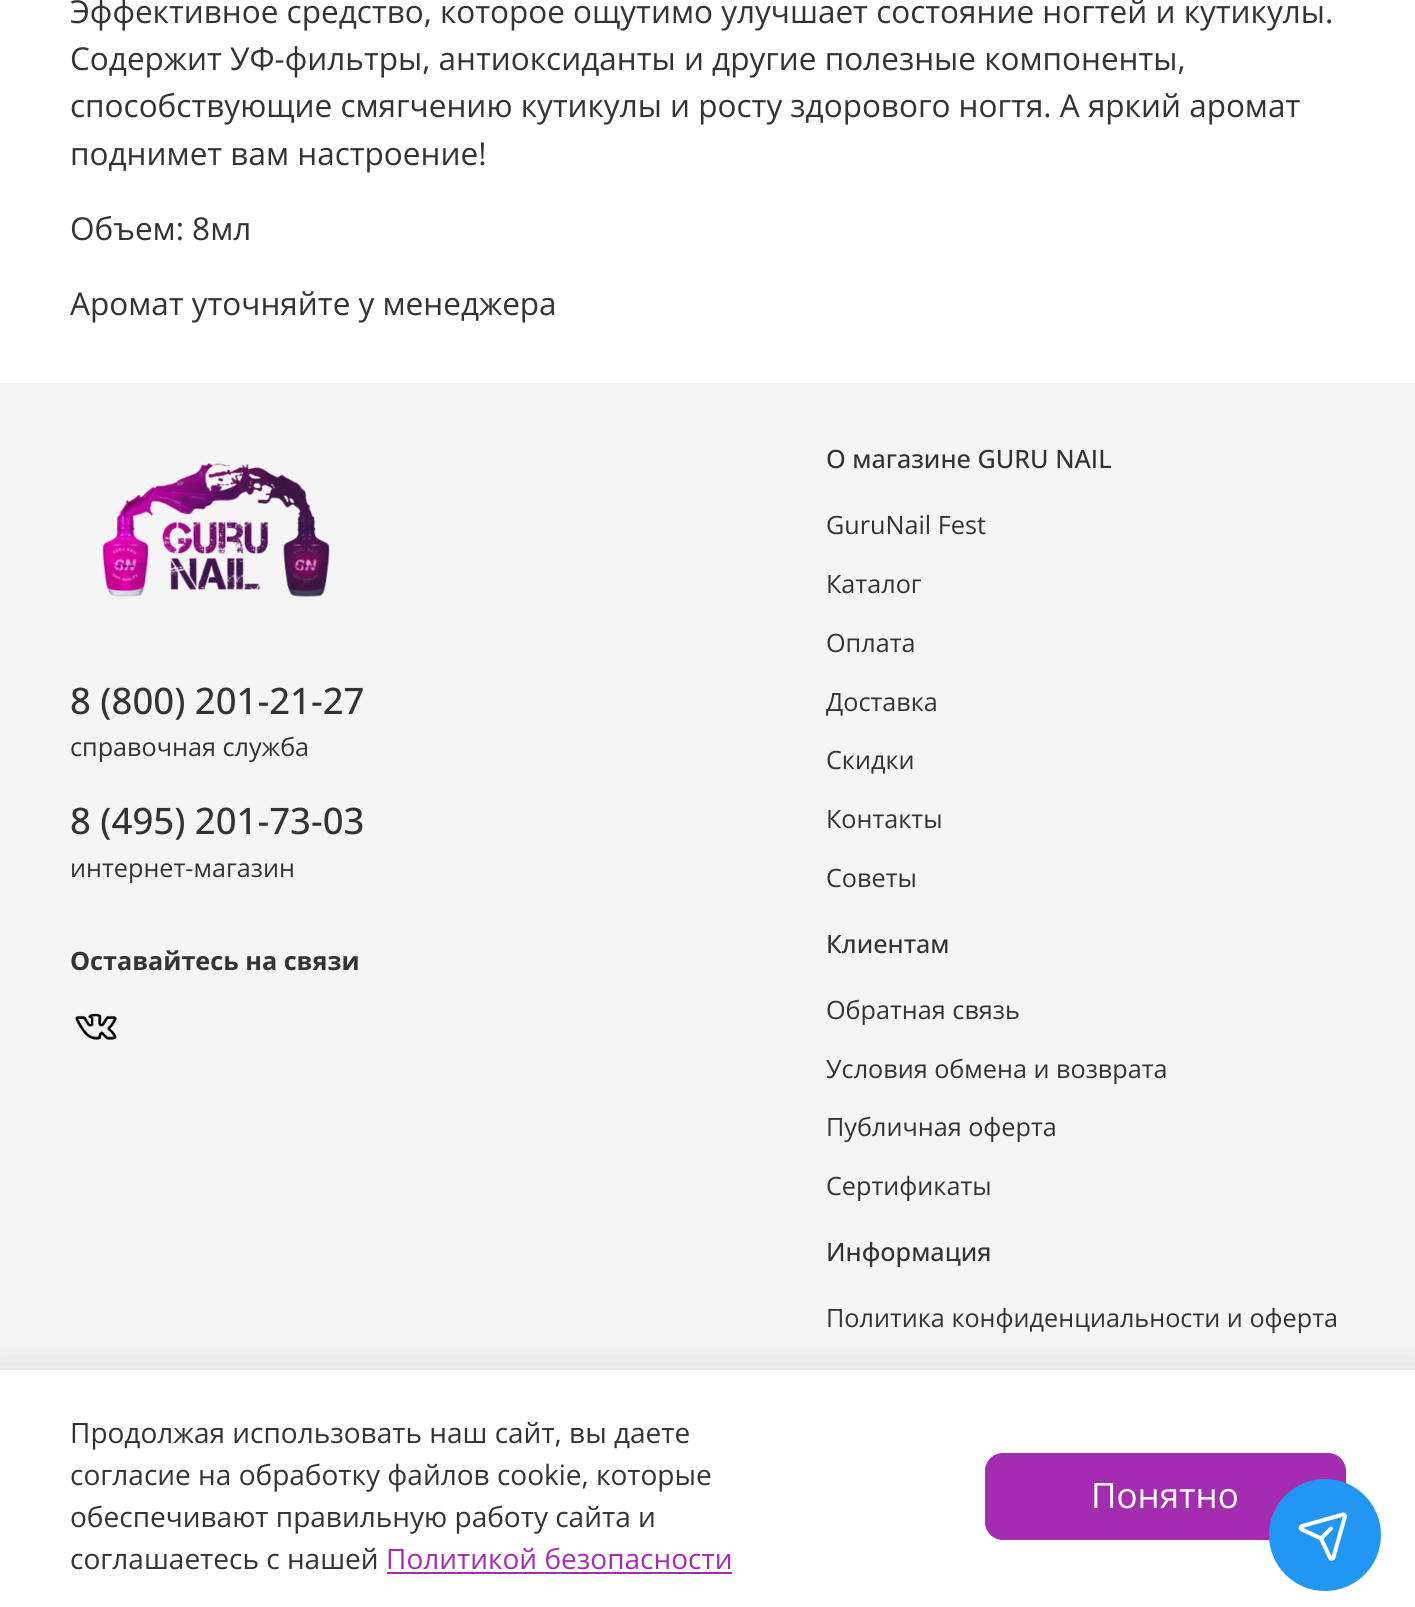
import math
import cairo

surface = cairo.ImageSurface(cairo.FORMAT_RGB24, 1415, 1607)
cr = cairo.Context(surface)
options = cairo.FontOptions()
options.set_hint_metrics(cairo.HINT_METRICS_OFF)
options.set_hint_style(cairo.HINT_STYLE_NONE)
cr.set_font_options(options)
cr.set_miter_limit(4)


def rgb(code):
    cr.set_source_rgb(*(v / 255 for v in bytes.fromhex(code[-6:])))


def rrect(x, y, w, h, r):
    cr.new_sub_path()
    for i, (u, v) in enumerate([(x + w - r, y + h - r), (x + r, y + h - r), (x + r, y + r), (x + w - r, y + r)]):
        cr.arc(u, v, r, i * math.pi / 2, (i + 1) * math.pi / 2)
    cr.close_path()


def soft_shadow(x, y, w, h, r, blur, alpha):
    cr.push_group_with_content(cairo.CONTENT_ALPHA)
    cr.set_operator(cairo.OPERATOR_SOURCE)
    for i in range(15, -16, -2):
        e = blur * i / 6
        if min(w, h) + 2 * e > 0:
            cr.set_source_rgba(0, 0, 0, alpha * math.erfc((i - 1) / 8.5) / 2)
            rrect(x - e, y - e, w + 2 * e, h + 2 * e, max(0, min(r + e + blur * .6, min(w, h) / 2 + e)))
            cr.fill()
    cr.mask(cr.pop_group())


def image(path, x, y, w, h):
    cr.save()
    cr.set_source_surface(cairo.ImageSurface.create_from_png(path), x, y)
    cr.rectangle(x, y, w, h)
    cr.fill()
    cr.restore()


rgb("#ffffff")
cr.paint()
rgb("#f5f5f6")
cr.rectangle(0, 383, 1415, 987)
cr.fill()
image("img/1.png", 102, 463, 228, 134)
image("img/2.png", 75, 1013, 42, 27)
rgb("#000000")
soft_shadow(-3, 1365, 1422, 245, 0, 20, 0.09)
rgb("#ffffff")
cr.rectangle(0, 1370, 1415, 237)
cr.fill()
rgb("#a42cb0")
cr.rectangle(387, 1572, 345, 2)
cr.fill()
rrect(985, 1453, 361, 87, 18)
cr.fill()
rgb("#2196f3")
cr.arc(1325, 1535, 56, 0, 2 * math.pi)
cr.fill()
image("img/3.png", 1298, 1512, 49, 49)
cr.select_font_face("Open Sans")
cr.set_font_size(31.5)
rgb("#333333")
for x, y, s in [
    (70, 23, "Эффективное средство, которое ощутимо улучшает состояние ногтей и кутикулы."),
    (70, 70, "Содержит УФ-фильтры, антиоксиданты и другие полезные компоненты,"),
    (70, 117, "способствующие смягчению кутикулы и росту здорового ногтя. А яркий аромат"),
    (70, 165, "поднимет вам настроение!"),
    (70, 240, "Объем: 8мл"),
    (70, 315, "Аромат уточняйте у менеджера"),
]:
    cr.move_to(x, y)
    cr.show_text(s)
cr.select_font_face("Open Sans Medium")
cr.set_font_size(36.5)
cr.move_to(70, 714)
cr.show_text("8 (800) 201-21-27")
cr.select_font_face("Open Sans")
cr.set_font_size(25.2)
cr.move_to(70, 756)
cr.show_text("справочная служба")
cr.select_font_face("Open Sans Medium")
cr.set_font_size(36.5)
cr.move_to(70, 834)
cr.show_text("8 (495) 201-73-03")
cr.select_font_face("Open Sans")
cr.set_font_size(25.2)
cr.move_to(70, 877)
cr.show_text("интернет-магазин")
cr.select_font_face("Open Sans", cairo.FONT_SLANT_NORMAL, cairo.FONT_WEIGHT_BOLD)
cr.move_to(70, 970)
cr.show_text("Оставайтесь на связи")
cr.select_font_face("Open Sans Medium")
cr.move_to(826, 468)
cr.show_text("О магазине GURU NAIL")
cr.select_font_face("Open Sans")
for x, y, s in [
    (826, 534, "GuruNail Fest"),
    (826, 593, "Каталог"),
    (826, 652, "Оплата"),
    (826, 711, "Доставка"),
    (826, 769, "Скидки"),
    (826, 828, "Контакты"),
    (826, 887, "Советы"),
]:
    cr.move_to(x, y)
    cr.show_text(s)
cr.select_font_face("Open Sans Medium")
cr.move_to(826, 953)
cr.show_text("Клиентам")
cr.select_font_face("Open Sans")
for x, y, s in [
    (826, 1019, "Обратная связь"),
    (826, 1078, "Условия обмена и возврата"),
    (826, 1136, "Публичная оферта"),
    (826, 1195, "Сертификаты"),
]:
    cr.move_to(x, y)
    cr.show_text(s)
cr.select_font_face("Open Sans Medium")
cr.move_to(826, 1261)
cr.show_text("Информация")
cr.select_font_face("Open Sans")
cr.move_to(826, 1327)
cr.show_text("Политика конфиденциальности и оферта")
cr.set_font_size(28)
for x, y, s in [
    (70, 1443, "Продолжая использовать наш сайт, вы даете"),
    (70, 1485, "согласие на обработку файлов cookie, которые"),
    (70, 1527, "обеспечивают правильную работу сайта и"),
    (70, 1569, "соглашаетесь с нашей"),
]:
    cr.move_to(x, y)
    cr.show_text(s)
rgb("#a42cb0")
cr.move_to(386, 1569)
cr.show_text("Политикой безопасности")
cr.set_font_size(35)
rgb("#ffffff")
cr.move_to(1091, 1508)
cr.show_text("Понятно")
surface.write_to_png("page.png")
